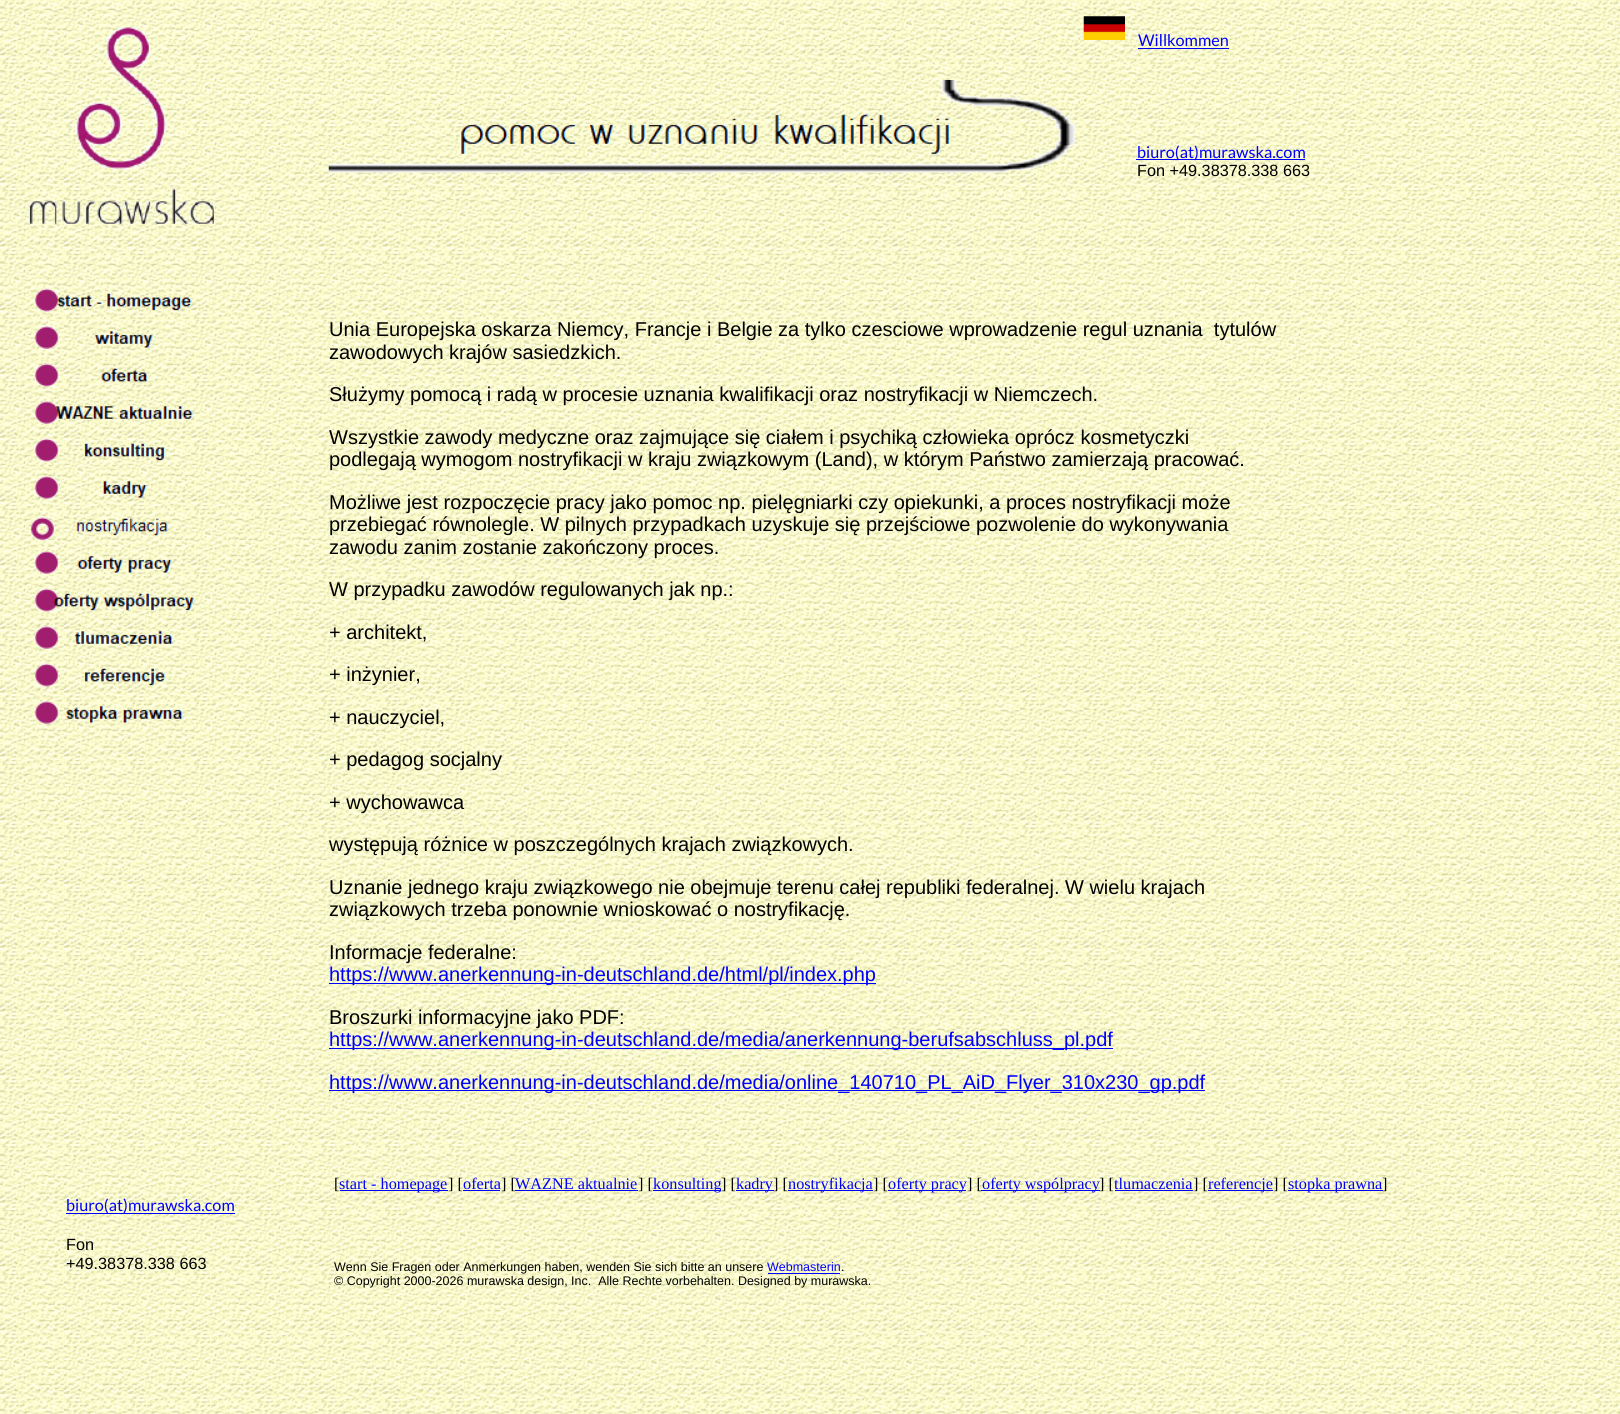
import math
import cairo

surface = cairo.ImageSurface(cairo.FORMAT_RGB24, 1620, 1414)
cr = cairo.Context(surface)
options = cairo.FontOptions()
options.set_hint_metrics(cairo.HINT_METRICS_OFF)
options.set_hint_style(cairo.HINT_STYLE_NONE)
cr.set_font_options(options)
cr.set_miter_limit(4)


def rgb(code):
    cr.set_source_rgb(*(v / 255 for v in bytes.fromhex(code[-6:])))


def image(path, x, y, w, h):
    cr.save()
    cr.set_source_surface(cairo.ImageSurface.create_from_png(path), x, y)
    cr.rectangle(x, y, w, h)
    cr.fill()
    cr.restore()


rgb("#ffffff")
cr.paint()
image("img/1.png", 0, 0, 1620, 1414)
image("img/2.png", 28, 27, 186, 197)
image("img/3.png", 34, 288, 158, 24)
image("img/4.png", 34, 326, 119, 23)
image("img/5.png", 34, 363, 114, 24)
image("img/6.png", 34, 401, 159, 23)
image("img/7.png", 34, 438, 132, 24)
image("img/8.png", 34, 476, 113, 23)
image("img/9.png", 31, 517, 137, 24)
image("img/10.png", 34, 551, 138, 23)
image("img/11.png", 34, 588, 160, 24)
image("img/12.png", 34, 626, 139, 23)
image("img/13.png", 34, 663, 132, 24)
image("img/14.png", 34, 701, 149, 23)
rgb("#0000ff")
cr.rectangle(66, 1213, 169, 1)
cr.fill()
image("img/15.png", 1083, 16, 42, 24)
image("img/16.png", 328, 80, 748, 93)
for x, y, w, h, color in [
    (1138, 48, 91, 1, "#0000ff"),
    (1136, 159, 169, 1, "#0000ff"),
    (329, 983, 547, 1, "#0000ff"),
    (329, 1048, 784, 1, "#0000ff"),
    (329, 1090, 876, 1, "#0000ff"),
    (340, 1190, 108, 1, "#0000ff"),
    (463, 1190, 37, 1, "#0000ff"),
    (515, 1190, 123, 1, "#0000ff"),
    (653, 1190, 68, 1, "#0000ff"),
    (736, 1190, 38, 1, "#0000ff"),
    (788, 1190, 85, 1, "#0000ff"),
    (888, 1190, 78, 1, "#0000ff"),
    (1115, 1190, 78, 1, "#0000ff"),
    (1208, 1190, 65, 1, "#0000ff"),
    (1288, 1190, 95, 1, "#0000ff"),
    (768, 1273, 72, 1, "#0000ff"),
]:
    rgb(color)
    cr.rectangle(x, y, w, h)
    cr.fill()
cr.select_font_face("Lato")
cr.set_font_size(16.25)
cr.move_to(66, 1211)
cr.show_text("biuro(at)murawska.com")
cr.select_font_face("Liberation Sans")
rgb("#000000")
cr.move_to(66, 1250)
cr.show_text("Fon")
cr.move_to(66, 1269)
cr.show_text("+49.38378.338 663")
cr.select_font_face("Lato")
rgb("#0000ff")
cr.move_to(1138, 46)
cr.show_text("Willkommen")
cr.move_to(1137, 158)
cr.show_text("biuro(at)murawska.com")
cr.select_font_face("Liberation Sans")
rgb("#000000")
cr.move_to(1137, 176)
cr.show_text("Fon +49.38378.338 663")
cr.set_font_size(20)
for x, y, s in [
    (329, 336, "Unia Europejska oskarza Niemcy, Francje i Belgie za tylko czesciowe wprowadzenie regul uznania  tytulów"),
    (329, 359, "zawodowych krajów sasiedzkich."),
    (329, 401, "Służymy pomocą i radą w procesie uznania kwalifikacji oraz nostryfikacji w Niemczech."),
    (329, 444, "Wszystkie zawody medyczne oraz zajmujące się ciałem i psychiką człowieka oprócz kosmetyczki"),
    (329, 466, "podlegają wymogom nostryfikacji w kraju związkowym (Land), w którym Państwo zamierzają pracować."),
    (329, 509, "Możliwe jest rozpoczęcie pracy jako pomoc np. pielęgniarki czy opiekunki, a proces nostryfikacji może"),
    (329, 531, "przebiegać równolegle. W pilnych przypadkach uzyskuje się przejściowe pozwolenie do wykonywania"),
    (329, 554, "zawodu zanim zostanie zakończony proces."),
    (329, 596, "W przypadku zawodów regulowanych jak np.:"),
    (329, 639, "+ architekt,"),
    (329, 681, "+ inżynier,"),
    (329, 724, "+ nauczyciel,"),
    (329, 766, "+ pedagog socjalny"),
    (329, 809, "+ wychowawca"),
    (329, 851, "występują różnice w poszczególnych krajach związkowych."),
    (329, 894, "Uznanie jednego kraju związkowego nie obejmuje terenu całej republiki federalnej. W wielu krajach"),
    (329, 916, "związkowych trzeba ponownie wnioskować o nostryfikację."),
    (329, 959, "Informacje federalne:"),
]:
    cr.move_to(x, y)
    cr.show_text(s)
rgb("#0000ff")
cr.move_to(329, 981)
cr.show_text("https://www.anerkennung-in-deutschland.de/html/pl/index.php")
rgb("#000000")
cr.move_to(329, 1024)
cr.show_text("Broszurki informacyjne jako PDF:")
rgb("#0000ff")
cr.move_to(329, 1046)
cr.show_text("https://www.anerkennung-in-deutschland.de/media/anerkennung-berufsabschluss_pl.pdf")
cr.move_to(329, 1089)
cr.show_text("https://www.anerkennung-in-deutschland.de/media/online_140710_PL_AiD_Flyer_310x230_gp.pdf")
cr.select_font_face("Liberation Serif")
cr.set_font_size(16.25)
rgb("#000000")
cr.move_to(334, 1189)
cr.show_text("[")
rgb("#0000ff")
cr.move_to(339, 1189)
cr.show_text("start - homepage")
rgb("#000000")
cr.move_to(448, 1189)
cr.show_text("] [")
rgb("#0000ff")
cr.move_to(463, 1189)
cr.show_text("oferta")
rgb("#000000")
cr.move_to(501, 1189)
cr.show_text("] [")
rgb("#0000ff")
cr.move_to(515, 1189)
cr.show_text("WAZNE aktualnie")
rgb("#000000")
cr.move_to(638, 1189)
cr.show_text("] [")
rgb("#0000ff")
cr.move_to(653, 1189)
cr.show_text("konsulting")
rgb("#000000")
cr.move_to(721, 1189)
cr.show_text("] [")
rgb("#0000ff")
cr.move_to(736, 1189)
cr.show_text("kadry")
rgb("#000000")
cr.move_to(773, 1189)
cr.show_text("] [")
rgb("#0000ff")
cr.move_to(788, 1189)
cr.show_text("nostryfikacja")
rgb("#000000")
cr.move_to(873, 1189)
cr.show_text("] [")
rgb("#0000ff")
cr.move_to(888, 1189)
cr.show_text("oferty pracy")
rgb("#000000")
cr.move_to(967, 1189)
cr.show_text("] [")
rgb("#0000ff")
cr.rectangle(981, 1190, 119, 1)
cr.fill()
cr.move_to(982, 1189)
cr.show_text("oferty wspólpracy")
rgb("#000000")
cr.move_to(1099, 1189)
cr.show_text("] [")
rgb("#0000ff")
cr.move_to(1114, 1189)
cr.show_text("tlumaczenia")
rgb("#000000")
cr.move_to(1193, 1189)
cr.show_text("] [")
rgb("#0000ff")
cr.move_to(1208, 1189)
cr.show_text("referencje")
rgb("#000000")
cr.move_to(1273, 1189)
cr.show_text("] [")
rgb("#0000ff")
cr.move_to(1288, 1189)
cr.show_text("stopka prawna")
rgb("#000000")
cr.move_to(1382, 1189)
cr.show_text("]")
cr.select_font_face("Liberation Sans")
cr.set_font_size(12.5)
cr.move_to(334, 1271)
cr.show_text("Wenn Sie Fragen oder Anmerkungen haben, wenden Sie sich bitte an unsere")
rgb("#0000ff")
cr.move_to(767, 1271)
cr.show_text("Webmasterin")
rgb("#000000")
cr.move_to(841, 1271)
cr.show_text(".")
cr.move_to(334, 1285)
cr.show_text("© Copyright 2000-2026 murawska design, Inc.  Alle Rechte vorbehalten. Designed by murawska.")
surface.write_to_png("page.png")
